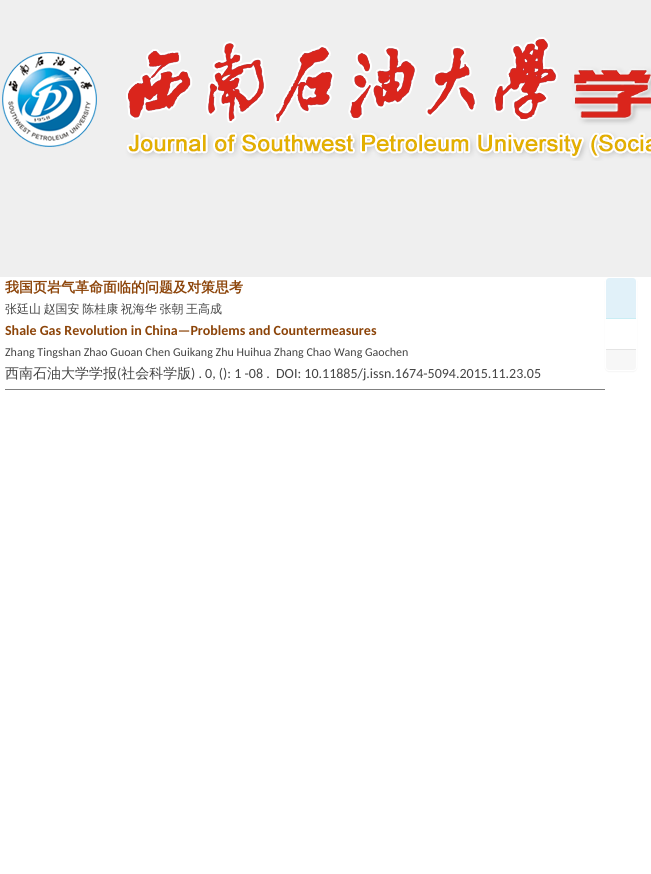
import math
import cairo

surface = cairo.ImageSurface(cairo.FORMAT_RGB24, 651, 874)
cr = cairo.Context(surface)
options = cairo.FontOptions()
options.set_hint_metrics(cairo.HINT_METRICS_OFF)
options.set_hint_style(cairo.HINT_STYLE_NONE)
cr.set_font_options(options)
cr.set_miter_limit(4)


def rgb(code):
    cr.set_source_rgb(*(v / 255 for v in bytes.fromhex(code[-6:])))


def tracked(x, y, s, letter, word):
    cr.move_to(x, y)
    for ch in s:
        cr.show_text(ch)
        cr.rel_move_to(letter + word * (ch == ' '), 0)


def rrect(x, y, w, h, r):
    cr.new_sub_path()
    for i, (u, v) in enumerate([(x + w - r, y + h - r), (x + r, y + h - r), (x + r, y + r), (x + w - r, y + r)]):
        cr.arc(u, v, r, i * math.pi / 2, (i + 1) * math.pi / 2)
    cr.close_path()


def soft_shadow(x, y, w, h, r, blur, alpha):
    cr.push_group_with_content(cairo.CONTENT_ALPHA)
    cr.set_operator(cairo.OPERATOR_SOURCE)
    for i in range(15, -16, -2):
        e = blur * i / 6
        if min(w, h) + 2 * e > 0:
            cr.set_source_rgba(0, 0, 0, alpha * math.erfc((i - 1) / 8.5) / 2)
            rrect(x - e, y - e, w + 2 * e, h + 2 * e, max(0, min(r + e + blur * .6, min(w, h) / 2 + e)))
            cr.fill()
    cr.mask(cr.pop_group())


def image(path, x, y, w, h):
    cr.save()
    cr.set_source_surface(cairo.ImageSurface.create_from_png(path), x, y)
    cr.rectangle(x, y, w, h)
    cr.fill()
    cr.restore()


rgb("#efefef")
cr.paint()
image("img/1.png", 2, 37, 649, 124)
rgb("#ffffff")
cr.rectangle(0, 277, 651, 597)
cr.fill()
rgb("#808080")
cr.rectangle(5, 389, 600, 1)
cr.fill()
rgb("#333333")
soft_shadow(605, 278, 32, 94, 4, 0.5, 0.05)
rgb("#ffffff")
rrect(605, 277, 32, 94, 4)
cr.fill()
rgb("#e1f1f9")
cr.new_path()
cr.move_to(609, 278)
cr.line_to(633, 278)
cr.curve_to(634.5, 278, 636, 279.5, 636, 281)
cr.line_to(636, 319)
cr.line_to(606, 319)
cr.line_to(606, 281)
cr.curve_to(606, 279.5, 607.5, 278, 609, 278)
cr.close_path()
cr.fill()
rgb("#c9edf4")
cr.rectangle(606, 318, 30, 1)
cr.fill()
rgb("#f7f7f7")
cr.new_path()
cr.move_to(606, 349)
cr.line_to(636, 349)
cr.line_to(636, 367)
cr.curve_to(636, 368.5, 634.5, 370, 633, 370)
cr.line_to(609, 370)
cr.curve_to(607.5, 370, 606, 368.5, 606, 367)
cr.close_path()
cr.fill()
rgb("#e4e4e4")
cr.rectangle(606, 349, 30, 1)
cr.fill()
cr.select_font_face("WenQuanYi Zen Hei", cairo.FONT_SLANT_NORMAL, cairo.FONT_WEIGHT_BOLD)
cr.set_font_size(14)
rgb("#8c4409")
cr.move_to(5, 292)
cr.show_text("我国页岩气革命面临的问题及对策思考")
cr.select_font_face("WenQuanYi Zen Hei Medium")
cr.set_font_size(12)
rgb("#444444")
tracked(5, 313, "张廷山 赵国安 陈桂康 祝海华 张朝 王高成", 0, -1)
cr.select_font_face("Carlito", cairo.FONT_SLANT_NORMAL, cairo.FONT_WEIGHT_BOLD)
cr.set_font_size(14)
rgb("#8c4409")
cr.move_to(5, 335)
cr.show_text("Shale Gas Revolution in China—Problems and Countermeasures")
cr.select_font_face("Carlito")
cr.set_font_size(12)
rgb("#444444")
cr.move_to(5, 356)
cr.show_text("Zhang Tingshan Zhao Guoan Chen Guikang Zhu Huihua Zhang Chao Wang Gaochen")
cr.select_font_face("WenQuanYi Zen Hei Medium")
cr.set_font_size(14)
cr.move_to(5, 378)
cr.show_text("西南石油大学学报 社会科学版")
cr.select_font_face("Carlito")
for x, y, s in [
    (117, 378, "("),
    (191, 378, ") . 0, (): 1 -08 ."),
    (276, 378, "DOI: 10.11885/j.issn.1674-5094.2015.11.23.05"),
]:
    cr.move_to(x, y)
    cr.show_text(s)
surface.write_to_png("page.png")
